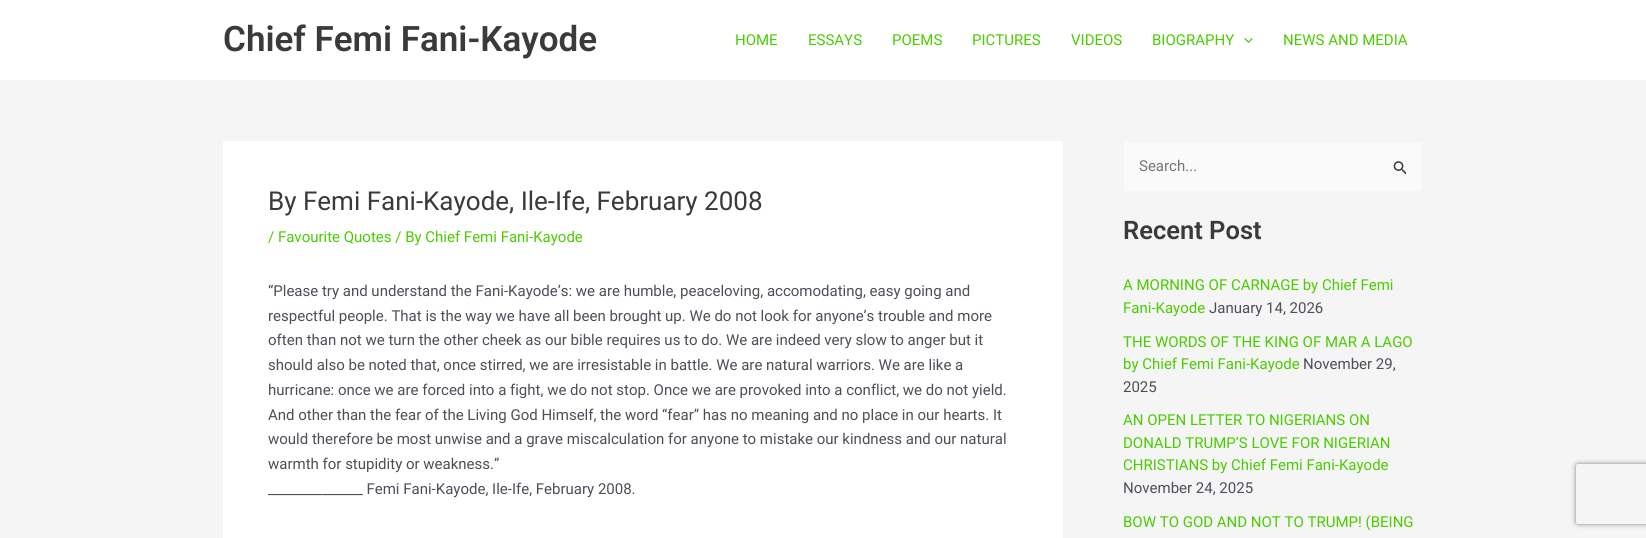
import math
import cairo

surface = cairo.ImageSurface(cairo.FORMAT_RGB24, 1646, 538)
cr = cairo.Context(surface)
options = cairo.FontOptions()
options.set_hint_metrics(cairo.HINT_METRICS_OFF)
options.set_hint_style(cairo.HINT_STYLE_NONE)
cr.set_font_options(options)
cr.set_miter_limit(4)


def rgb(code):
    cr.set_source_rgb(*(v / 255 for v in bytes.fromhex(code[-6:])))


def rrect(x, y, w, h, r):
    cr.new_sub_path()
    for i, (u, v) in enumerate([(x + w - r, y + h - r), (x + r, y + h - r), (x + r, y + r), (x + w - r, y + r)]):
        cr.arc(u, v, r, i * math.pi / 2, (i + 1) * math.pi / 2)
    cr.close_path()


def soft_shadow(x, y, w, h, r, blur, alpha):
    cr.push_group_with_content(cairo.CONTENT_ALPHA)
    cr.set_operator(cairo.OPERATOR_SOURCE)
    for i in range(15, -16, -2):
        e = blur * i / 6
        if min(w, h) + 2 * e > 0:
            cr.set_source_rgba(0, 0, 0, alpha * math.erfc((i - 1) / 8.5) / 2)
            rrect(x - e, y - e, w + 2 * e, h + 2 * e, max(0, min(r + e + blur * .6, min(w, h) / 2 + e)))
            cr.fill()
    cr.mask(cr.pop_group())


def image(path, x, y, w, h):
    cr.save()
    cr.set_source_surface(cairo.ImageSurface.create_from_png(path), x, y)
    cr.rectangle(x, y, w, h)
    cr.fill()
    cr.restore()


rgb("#f5f5f5")
cr.paint()
rgb("#ffffff")
cr.rectangle(0, 0, 1646, 80)
cr.fill()
rgb("#f2f5f7")
cr.rectangle(0, 80, 1646, 1)
cr.fill()
image("img/1.png", 1244, 38, 9, 5)
rgb("#ffffff")
cr.rectangle(223, 141, 840, 397)
cr.fill()
rgb("#fafafa")
rrect(1123.5, 141.5, 299, 50, 1.5)
cr.fill_preserve()
rgb("#f2f5f7")
cr.set_line_width(1)
cr.stroke()
image("img/2.png", 1393, 161, 13, 14)
cr.save()
cr.set_fill_rule(cairo.FILL_RULE_EVEN_ODD)
cr.new_path()
cr.move_to(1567, 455)
cr.line_to(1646, 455)
cr.line_to(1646, 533)
cr.line_to(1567, 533)
cr.close_path()
cr.move_to(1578, 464)
cr.line_to(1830, 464)
cr.curve_to(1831, 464, 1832, 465, 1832, 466)
cr.line_to(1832, 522)
cr.curve_to(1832, 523, 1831, 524, 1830, 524)
cr.line_to(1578, 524)
cr.curve_to(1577, 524, 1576, 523, 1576, 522)
cr.line_to(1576, 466)
cr.curve_to(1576, 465, 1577, 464, 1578, 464)
cr.close_path()
cr.clip()
rgb("#808080")
soft_shadow(1576, 464, 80, 60, 2, 2.5, 1)
cr.restore()
cr.select_font_face("Roboto SemiBold")
cr.set_font_size(35)
rgb("#3a3a3a")
cr.move_to(223, 51)
cr.show_text("Chief Femi Fani-Kayode")
cr.select_font_face("Roboto")
cr.set_font_size(15)
rgb("#4bcc01")
for x, y, s in [
    (735, 45, "HOME"),
    (808, 45, "ESSAYS"),
    (892, 45, "POEMS"),
    (972, 45, "PICTURES"),
    (1071, 45, "VIDEOS"),
    (1152, 45, "BIOGRAPHY"),
    (1283, 45, "NEWS AND MEDIA"),
]:
    cr.move_to(x, y)
    cr.show_text(s)
cr.set_font_size(26)
rgb("#3a3a3a")
cr.move_to(268, 210)
cr.show_text("By Femi Fani-Kayode, Ile-Ife, February 2008")
cr.set_font_size(15)
rgb("#4bcc01")
cr.move_to(268, 242)
cr.show_text("/ Favourite Quotes / By Chief Femi Fani-Kayode")
rgb("#4b4f58")
for x, y, s in [
    (268, 296, "“Please try and understand the Fani-Kayode’s: we are humble, peaceloving, accomodating, easy going and"),
    (268, 321, "respectful people. That is the way we have all been brought up. We do not look for anyone’s trouble and more"),
    (268, 345, "often than not we turn the other cheek as our bible requires us to do. We are indeed very slow to anger but it"),
    (268, 370, "should also be noted that, once stirred, we are irresistable in battle. We are natural warriors. We are like a"),
    (268, 395, "hurricane: once we are forced into a fight, we do not stop. Once we are provoked into a conflict, we do not yield."),
    (268, 420, "And other than the fear of the Living God Himself, the word “fear” has no meaning and no place in our hearts. It"),
    (268, 444, "would therefore be most unwise and a grave miscalculation for anyone to mistake our kindness and our natural"),
    (268, 469, "warmth for stupidity or weakness.”"),
    (268, 494, "______________ Femi Fani-Kayode, Ile-Ife, February 2008."),
]:
    cr.move_to(x, y)
    cr.show_text(s)
rgb("#757575")
cr.move_to(1139, 171)
cr.show_text("Search...")
cr.select_font_face("Roboto SemiBold")
cr.set_font_size(25.5)
rgb("#3a3a3a")
cr.move_to(1123, 239)
cr.show_text("Recent Post")
cr.select_font_face("Roboto")
cr.set_font_size(15)
rgb("#4bcc01")
cr.move_to(1123, 290)
cr.show_text("A MORNING OF CARNAGE by Chief Femi")
cr.move_to(1123, 313)
cr.show_text("Fani-Kayode")
rgb("#4b4f58")
cr.move_to(1209, 313)
cr.show_text("January 14, 2026")
rgb("#4bcc01")
cr.move_to(1123, 347)
cr.show_text("THE WORDS OF THE KING OF MAR A LAGO")
cr.move_to(1123, 369)
cr.show_text("by Chief Femi Fani-Kayode")
rgb("#4b4f58")
cr.move_to(1303, 369)
cr.show_text("November 29,")
cr.move_to(1123, 392)
cr.show_text("2025")
rgb("#4bcc01")
for x, y, s in [
    (1123, 425, "AN OPEN LETTER TO NIGERIANS ON"),
    (1123, 448, "DONALD TRUMP’S LOVE FOR NIGERIAN"),
    (1123, 470, "CHRISTIANS by Chief Femi Fani-Kayode"),
]:
    cr.move_to(x, y)
    cr.show_text(s)
rgb("#4b4f58")
cr.move_to(1123, 493)
cr.show_text("November 24, 2025")
rgb("#4bcc01")
cr.move_to(1123, 527)
cr.show_text("BOW TO GOD AND NOT TO TRUMP! (BEING")
surface.write_to_png("page.png")
